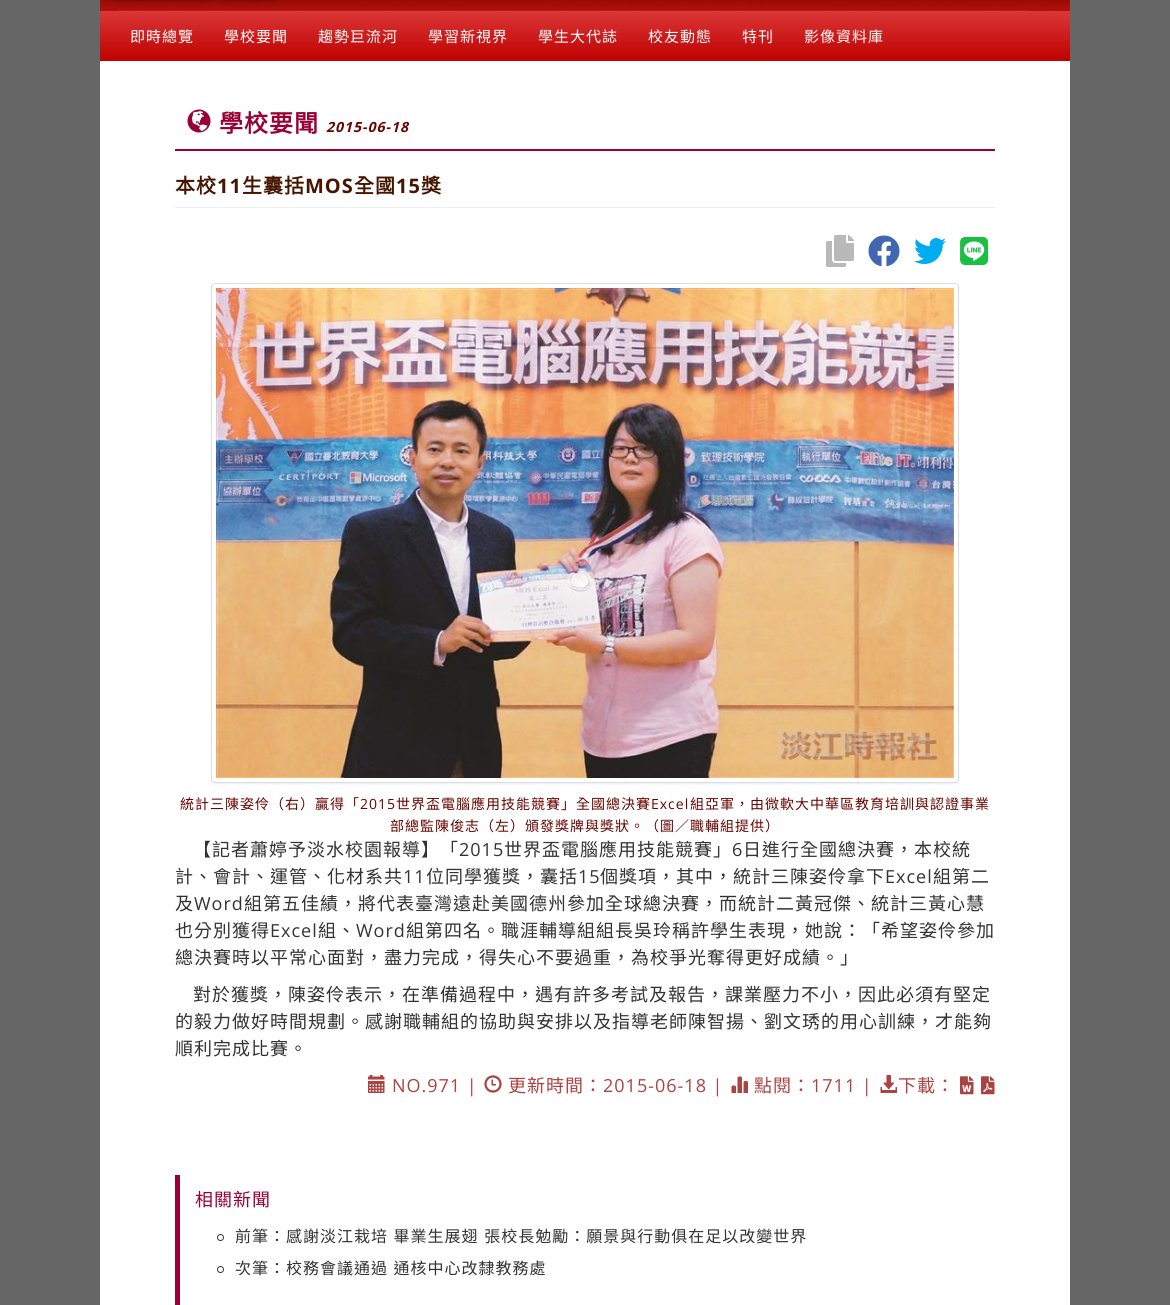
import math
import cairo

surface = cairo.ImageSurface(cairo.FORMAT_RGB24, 1170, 1305)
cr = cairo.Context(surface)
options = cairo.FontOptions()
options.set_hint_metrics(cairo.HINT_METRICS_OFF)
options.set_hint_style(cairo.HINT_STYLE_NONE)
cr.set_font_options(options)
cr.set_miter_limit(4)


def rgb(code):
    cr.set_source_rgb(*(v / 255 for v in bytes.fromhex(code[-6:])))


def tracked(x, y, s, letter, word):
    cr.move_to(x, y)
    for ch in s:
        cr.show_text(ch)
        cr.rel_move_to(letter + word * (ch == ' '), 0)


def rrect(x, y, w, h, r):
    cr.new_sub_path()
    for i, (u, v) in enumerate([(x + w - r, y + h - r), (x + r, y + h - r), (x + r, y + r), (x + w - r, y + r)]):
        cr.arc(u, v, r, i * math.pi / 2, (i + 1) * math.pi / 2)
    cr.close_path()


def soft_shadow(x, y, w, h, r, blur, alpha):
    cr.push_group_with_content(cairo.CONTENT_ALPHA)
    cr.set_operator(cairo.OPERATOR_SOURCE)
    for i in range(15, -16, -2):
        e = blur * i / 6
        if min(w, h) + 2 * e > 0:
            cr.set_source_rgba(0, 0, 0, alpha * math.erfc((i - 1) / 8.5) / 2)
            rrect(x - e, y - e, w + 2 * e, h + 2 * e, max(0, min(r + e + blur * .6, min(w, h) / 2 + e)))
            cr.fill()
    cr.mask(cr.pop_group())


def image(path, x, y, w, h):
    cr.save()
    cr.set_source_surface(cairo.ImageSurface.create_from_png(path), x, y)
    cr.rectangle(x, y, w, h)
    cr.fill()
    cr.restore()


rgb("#666666")
cr.paint()
image("img/1.png", 100, 0, 970, 11)
gradient = cairo.LinearGradient(585, 11, 585, 61)
gradient.add_color_stop_rgba(0, 0.859, 0.216, 0.216, 1)
gradient.add_color_stop_rgba(1, 0.749, 0, 0, 1)
cr.set_source(gradient)
cr.rectangle(100, 11, 970, 50)
cr.fill()
rgb("#ffffff")
cr.rectangle(100, 61, 970, 1244)
cr.fill()
rgb("#990134")
cr.rectangle(175, 149, 820, 2)
cr.fill()
image("img/2.png", 187, 109, 24, 24)
rgb("#eeeeee")
cr.rectangle(175, 207, 820, 1)
cr.fill()
image("img/3.png", 826, 235, 28, 32)
image("img/4.png", 868, 235, 32, 32)
image("img/5.png", 914, 238, 32, 26)
image("img/6.png", 960, 237, 29, 28)
rgb("#000000")
soft_shadow(211, 284, 748, 500, 4, 1, 0.07)
rgb("#ffffff")
rrect(211.5, 283.5, 747, 499, 3.5)
cr.fill_preserve()
rgb("#dddddd")
cr.set_line_width(1)
cr.stroke()
image("img/7.png", 216, 288, 738, 490)
image("img/8.png", 368, 1075, 17, 18)
image("img/9.png", 484, 1075, 18, 18)
image("img/10.png", 731, 1076, 17, 17)
image("img/11.png", 880, 1075, 17, 18)
image("img/12.png", 960, 1076, 14, 19)
image("img/13.png", 981, 1076, 14, 19)
rgb("#990134")
cr.rectangle(175, 1175, 5, 130)
cr.fill()
cr.arc(220.5, 1237.5, 3, 0, 2 * math.pi)
rgb("#333333")
cr.stroke()
cr.arc(220.5, 1269.5, 3, 0, 2 * math.pi)
cr.stroke()
cr.select_font_face("Noto Sans CJK TC")
cr.set_font_size(15)
rgb("#ffffff")
for x, y, s in [
    (130, 42, "即時總覽"),
    (224, 42, "學校要聞"),
    (318, 42, "趨勢巨流河"),
    (428, 42, "學習新視界"),
    (538, 42, "學生大代誌"),
    (648, 42, "校友動態"),
    (742, 42, "特刊"),
    (804, 42, "影像資料庫"),
]:
    tracked(x, y, s, 1, 0)
cr.select_font_face("Noto Sans CJK TC", cairo.FONT_SLANT_NORMAL, cairo.FONT_WEIGHT_BOLD)
cr.set_font_size(24)
rgb("#990134")
tracked(219, 132, "學校要聞", 1, 0)
cr.select_font_face("Open Sans", cairo.FONT_SLANT_ITALIC, cairo.FONT_WEIGHT_BOLD)
cr.set_font_size(14)
rgb("#670400")
tracked(326, 132, "2015-06-18", 1, 0)
cr.select_font_face("Noto Sans CJK TC", cairo.FONT_SLANT_NORMAL, cairo.FONT_WEIGHT_BOLD)
cr.set_font_size(20)
rgb("#471600")
tracked(175, 193, "本校", 1, 0)
cr.select_font_face("Open Sans", cairo.FONT_SLANT_NORMAL, cairo.FONT_WEIGHT_BOLD)
tracked(217, 193, "11", 1, 0)
cr.select_font_face("Noto Sans CJK TC", cairo.FONT_SLANT_NORMAL, cairo.FONT_WEIGHT_BOLD)
tracked(242, 193, "生囊括", 1, 0)
cr.select_font_face("Open Sans", cairo.FONT_SLANT_NORMAL, cairo.FONT_WEIGHT_BOLD)
tracked(305, 193, "MOS", 1, 0)
cr.select_font_face("Noto Sans CJK TC", cairo.FONT_SLANT_NORMAL, cairo.FONT_WEIGHT_BOLD)
tracked(354, 193, "全國", 1, 0)
cr.select_font_face("Open Sans", cairo.FONT_SLANT_NORMAL, cairo.FONT_WEIGHT_BOLD)
tracked(396, 193, "15", 1, 0)
cr.select_font_face("Noto Sans CJK TC", cairo.FONT_SLANT_NORMAL, cairo.FONT_WEIGHT_BOLD)
tracked(421, 193, "獎", 1, 0)
cr.select_font_face("Noto Sans CJK TC")
cr.set_font_size(14)
rgb("#670400")
tracked(180, 809, "統計三陳姿伶（右）贏得「", 1, 0)
cr.select_font_face("Open Sans")
tracked(360, 809, "2015", 1, 0)
cr.select_font_face("Noto Sans CJK TC")
tracked(396, 809, "世界盃電腦應用技能競賽」全國總決賽", 1, 0)
cr.select_font_face("Open Sans")
tracked(651, 809, "Excel", 1, 0)
cr.select_font_face("Noto Sans CJK TC")
tracked(690, 809, "組亞軍，由微軟大中華區教育培訓與認證事業", 1, 0)
tracked(390, 831, "部總監陳俊志（左）頒發獎牌與獎狀。（圖／職輔組提供）", 1, 0)
cr.set_font_size(18)
rgb("#333333")
tracked(193, 856, "【記者蕭婷予淡水校園報導】「", 1, 0)
cr.select_font_face("Open Sans")
tracked(459, 856, "2015", 1, 0)
cr.select_font_face("Noto Sans CJK TC")
tracked(504, 856, "世界盃電腦應用技能競賽」", 1, 0)
cr.select_font_face("Open Sans")
tracked(732, 856, "6", 1, 0)
cr.select_font_face("Noto Sans CJK TC")
tracked(743, 856, "日進行全國總決賽，本校統", 1, 0)
tracked(175, 883, "計、會計、運管、化材系共", 1, 0)
cr.select_font_face("Open Sans")
tracked(403, 883, "11", 1, 0)
cr.select_font_face("Noto Sans CJK TC")
tracked(426, 883, "位同學獲獎，囊括", 1, 0)
cr.select_font_face("Open Sans")
tracked(578, 883, "15", 1, 0)
cr.select_font_face("Noto Sans CJK TC")
tracked(600, 883, "個獎項，其中，統計三陳姿伶拿下", 1, 0)
cr.select_font_face("Open Sans")
tracked(885, 883, "Excel", 1, 0)
cr.select_font_face("Noto Sans CJK TC")
tracked(933, 883, "組第二", 1, 0)
tracked(175, 910, "及", 1, 0)
cr.select_font_face("Open Sans")
tracked(194, 910, "Word", 1, 0)
cr.select_font_face("Noto Sans CJK TC")
tracked(244, 910, "組第五佳績，將代表臺灣遠赴美國德州參加全球總決賽，而統計二黃冠傑、統計三黃心慧", 1, 0)
tracked(175, 937, "也分別獲得", 1, 0)
cr.select_font_face("Open Sans")
tracked(270, 937, "Excel", 1, 0)
cr.select_font_face("Noto Sans CJK TC")
tracked(318, 937, "組、", 1, 0)
cr.select_font_face("Open Sans")
tracked(356, 937, "Word", 1, 0)
cr.select_font_face("Noto Sans CJK TC")
for x, y, s in [
    (406, 937, "組第四名。職涯輔導組組長吳玲稱許學生表現，她說：「希望姿伶參加"),
    (175, 964, "總決賽時以平常心面對，盡力完成，得失心不要過重，為校爭光奪得更好成績。」"),
    (193, 1001, "對於獲獎，陳姿伶表示，在準備過程中，遇有許多考試及報告，課業壓力不小，因此必須有堅定"),
    (175, 1028, "的毅力做好時間規劃。感謝職輔組的協助與安排以及指導老師陳智揚、劉文琇的用心訓練，才能夠"),
    (175, 1055, "順利完成比賽。"),
]:
    tracked(x, y, s, 1, 0)
cr.select_font_face("Open Sans")
rgb("#a94442")
tracked(392, 1092, "NO.971 |", 1, 0)
cr.select_font_face("Noto Sans CJK TC")
tracked(508, 1092, "更新時間：", 1, 0)
cr.select_font_face("Open Sans")
tracked(603, 1092, "2015-06-18 |", 1, 0)
cr.select_font_face("Noto Sans CJK TC")
tracked(754, 1092, "點閱：", 1, 0)
cr.select_font_face("Open Sans")
tracked(811, 1092, "1711 |", 1, 0)
cr.select_font_face("Noto Sans CJK TC")
tracked(898, 1092, "下載：", 1, 0)
rgb("#990134")
tracked(195, 1206, "相關新聞", 1, 0)
cr.set_font_size(16)
rgb("#333333")
tracked(235, 1242, "前筆：感謝淡江栽培 畢業生展翅 張校長勉勵：願景與行動俱在足以改變世界", 1, 1)
tracked(235, 1274, "次筆：校務會議通過 通核中心改隸教務處", 1, 1)
surface.write_to_png("page.png")
